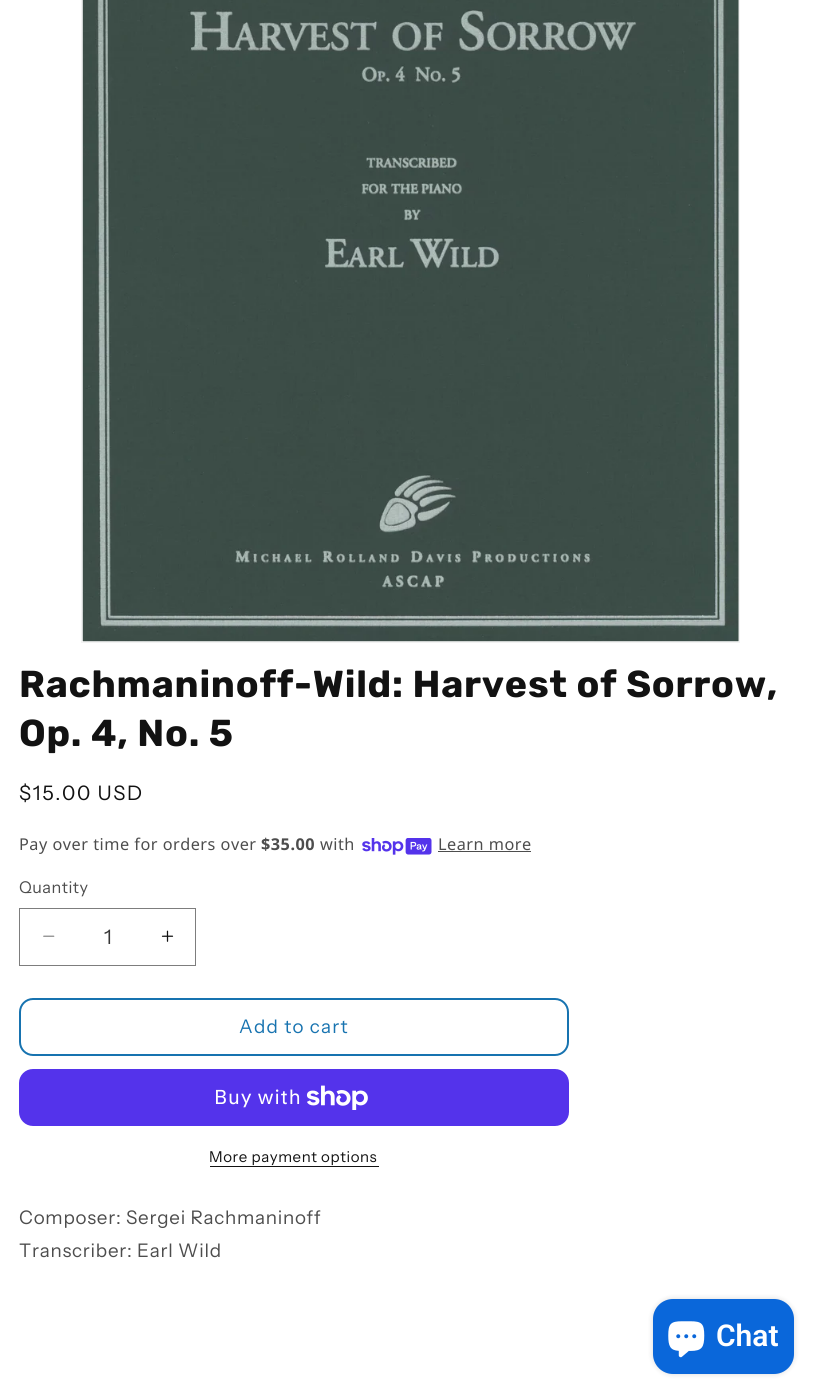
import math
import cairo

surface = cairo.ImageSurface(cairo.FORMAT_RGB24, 821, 1400)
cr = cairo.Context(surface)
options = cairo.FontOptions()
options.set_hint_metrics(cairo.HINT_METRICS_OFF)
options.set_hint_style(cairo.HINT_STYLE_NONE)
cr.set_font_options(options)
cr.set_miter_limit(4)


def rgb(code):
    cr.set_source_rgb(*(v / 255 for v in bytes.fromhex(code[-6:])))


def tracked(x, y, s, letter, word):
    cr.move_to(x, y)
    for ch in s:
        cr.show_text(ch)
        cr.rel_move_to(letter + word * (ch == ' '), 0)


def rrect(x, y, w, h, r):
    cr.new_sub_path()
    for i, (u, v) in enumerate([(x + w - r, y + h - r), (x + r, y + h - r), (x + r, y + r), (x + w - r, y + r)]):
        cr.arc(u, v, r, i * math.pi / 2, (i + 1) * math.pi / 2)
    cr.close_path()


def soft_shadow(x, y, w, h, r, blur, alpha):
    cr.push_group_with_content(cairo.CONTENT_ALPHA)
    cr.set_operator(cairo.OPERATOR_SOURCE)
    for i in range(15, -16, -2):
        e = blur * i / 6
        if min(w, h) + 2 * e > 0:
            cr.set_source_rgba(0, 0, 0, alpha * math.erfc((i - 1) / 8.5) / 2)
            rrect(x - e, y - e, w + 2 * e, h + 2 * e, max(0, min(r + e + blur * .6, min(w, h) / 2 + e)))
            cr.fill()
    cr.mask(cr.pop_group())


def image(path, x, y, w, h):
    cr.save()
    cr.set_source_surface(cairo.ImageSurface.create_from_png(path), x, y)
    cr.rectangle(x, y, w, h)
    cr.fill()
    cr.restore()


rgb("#ffffff")
cr.paint()
cr.rectangle(81.5, -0.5, 658, 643)
rgb("#f3f3f3")
cr.set_line_width(1)
cr.stroke()
image("img/1.png", 82, 0, 657, 642)
image("img/2.png", 362, 838, 70, 17)
rgb("#4d4d4d")
cr.rectangle(438, 851, 93, 1)
cr.fill()
image("img/3.png", 43, 935, 12, 2)
image("img/4.png", 161, 930, 13, 12)
cr.rectangle(19.5, 908.5, 176, 57)
rgb("#7d7d7d")
cr.stroke()
rrect(20, 999, 548, 56, 13)
rgb("#1773b0")
cr.set_line_width(2)
cr.stroke()
rgb("#5433eb")
rrect(19, 1069, 550, 57, 14)
cr.fill()
image("img/5.png", 306, 1085, 62, 25)
rgb("#121212")
cr.rectangle(210, 1166, 169, 1)
cr.fill()
rgb("#000000")
soft_shadow(653, 1299, 141, 75, 20, 3, 0.15)
rgb("#0a67da")
rrect(653, 1299, 141, 75, 20)
cr.fill()
image("img/6.png", 668, 1321, 37, 37)
cr.select_font_face("Rubik", cairo.FONT_SLANT_NORMAL, cairo.FONT_WEIGHT_BOLD)
cr.set_font_size(37.5)
rgb("#121212")
tracked(19, 697, "Rachmaninoff-Wild: Harvest of Sorrow,", 0.75, 0)
tracked(19, 746, "Op. 4, No. 5", 0.75, 0)
cr.select_font_face("Instrument Sans")
cr.set_font_size(20)
tracked(19, 800, "$15.00 USD", 1.6, 0)
cr.select_font_face("Noto Sans")
cr.set_font_size(16.25)
rgb("#4d4d4d")
tracked(19, 850, "Pay over time for orders over", 0.5, 0)
cr.select_font_face("Noto Sans", cairo.FONT_SLANT_NORMAL, cairo.FONT_WEIGHT_BOLD)
tracked(261, 850, "$35.00", 0.5, 0)
cr.select_font_face("Noto Sans")
tracked(320, 850, "with", 0.5, 0)
tracked(438, 850, "Learn more", 0.5, 0)
cr.select_font_face("Instrument Sans")
tracked(19, 893, "Quantity", 0.5, 0)
cr.set_font_size(20)
rgb("#363636")
cr.move_to(104, 944)
cr.show_text("1")
cr.set_font_size(18.75)
rgb("#1773b0")
tracked(239, 1033, "Add to cart", 1.25, 0)
cr.select_font_face("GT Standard")
cr.set_font_size(20)
rgb("#ffffff")
tracked(214, 1104, "Buy with", 0.75, 0)
cr.select_font_face("Instrument Sans")
cr.set_font_size(15)
rgb("#121212")
tracked(209, 1162, "More payment options", 0.6, 0)
cr.set_font_size(18.75)
rgb("#4d4d4d")
tracked(19, 1224, "Composer: Sergei Rachmaninoff", 0.75, 0)
tracked(19, 1257, "Transcriber: Earl Wild", 0.75, 0)
cr.select_font_face("Roboto SemiBold")
cr.set_font_size(30)
rgb("#ffffff")
cr.move_to(716, 1346)
cr.show_text("Chat")
surface.write_to_png("page.png")
